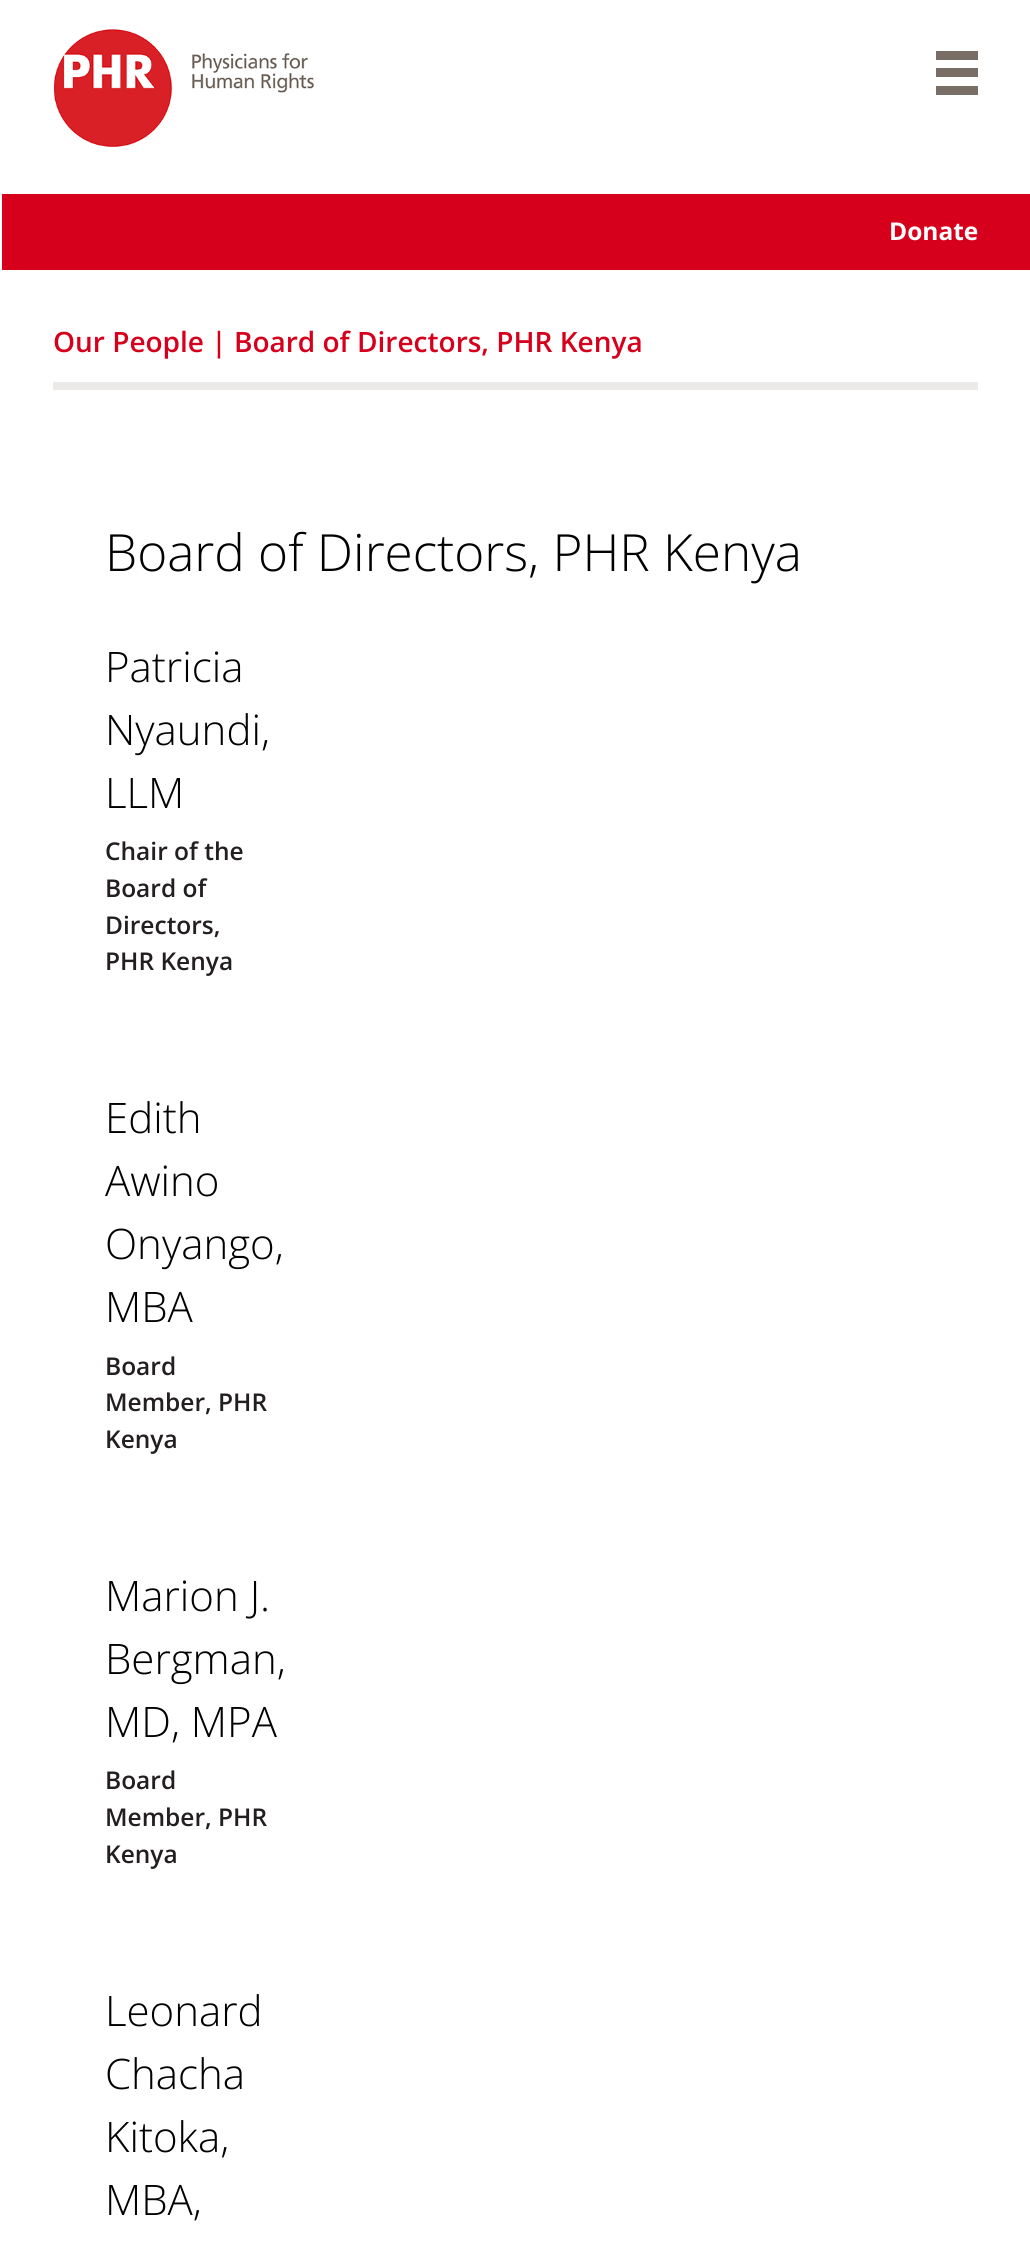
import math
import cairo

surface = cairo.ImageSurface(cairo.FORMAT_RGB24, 1030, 2254)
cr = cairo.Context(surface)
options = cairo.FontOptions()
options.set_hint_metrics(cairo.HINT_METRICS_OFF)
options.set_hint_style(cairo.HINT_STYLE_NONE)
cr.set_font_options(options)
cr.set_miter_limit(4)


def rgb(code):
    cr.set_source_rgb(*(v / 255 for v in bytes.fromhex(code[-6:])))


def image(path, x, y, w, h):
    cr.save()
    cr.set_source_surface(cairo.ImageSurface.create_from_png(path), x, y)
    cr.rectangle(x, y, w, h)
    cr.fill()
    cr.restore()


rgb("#ffffff")
cr.paint()
image("img/1.png", 54, 29, 260, 118)
for x, y, w, h, color in [
    (936, 68, 42, 9, "#796e65"),
    (936, 51, 42, 9, "#796e65"),
    (936, 86, 42, 9, "#796e65"),
    (2, 194, 1028, 76, "#d6001c"),
    (53, 382, 925, 8, "#ebeae8"),
]:
    rgb(color)
    cr.rectangle(x, y, w, h)
    cr.fill()
cr.select_font_face("Open Sans", cairo.FONT_SLANT_NORMAL, cairo.FONT_WEIGHT_BOLD)
cr.set_font_size(24.5)
rgb("#ffffff")
cr.move_to(889, 240)
cr.show_text("Donate")
cr.select_font_face("Open Sans SemiBold")
cr.set_font_size(28)
rgb("#d6001c")
cr.move_to(53, 352)
cr.show_text("Our People | Board of Directors, PHR Kenya")
cr.select_font_face("Open Sans Light")
cr.set_font_size(51.25)
rgb("#000000")
cr.move_to(105, 571)
cr.show_text("Board of Directors, PHR Kenya")
cr.set_font_size(42)
for x, y, s in [
    (105, 682, "Patricia"),
    (105, 745, "Nyaundi,"),
    (105, 808, "LLM"),
]:
    cr.move_to(x, y)
    cr.show_text(s)
cr.select_font_face("Open Sans SemiBold")
cr.set_font_size(24.5)
rgb("#231f20")
for x, y, s in [
    (105, 860, "Chair of the"),
    (105, 897, "Board of"),
    (105, 934, "Directors,"),
    (105, 970, "PHR Kenya"),
]:
    cr.move_to(x, y)
    cr.show_text(s)
cr.select_font_face("Open Sans Light")
cr.set_font_size(42)
rgb("#000000")
for x, y, s in [
    (105, 1133, "Edith"),
    (105, 1196, "Awino"),
    (105, 1259, "Onyango,"),
    (105, 1322, "MBA"),
]:
    cr.move_to(x, y)
    cr.show_text(s)
cr.select_font_face("Open Sans SemiBold")
cr.set_font_size(24.5)
rgb("#231f20")
for x, y, s in [
    (105, 1375, "Board"),
    (105, 1411, "Member, PHR"),
    (105, 1448, "Kenya"),
]:
    cr.move_to(x, y)
    cr.show_text(s)
cr.select_font_face("Open Sans Light")
cr.set_font_size(42)
rgb("#000000")
for x, y, s in [
    (105, 1611, "Marion J."),
    (105, 1674, "Bergman,"),
    (105, 1737, "MD, MPA"),
]:
    cr.move_to(x, y)
    cr.show_text(s)
cr.select_font_face("Open Sans SemiBold")
cr.set_font_size(24.5)
rgb("#231f20")
for x, y, s in [
    (105, 1789, "Board"),
    (105, 1826, "Member, PHR"),
    (105, 1863, "Kenya"),
]:
    cr.move_to(x, y)
    cr.show_text(s)
cr.select_font_face("Open Sans Light")
cr.set_font_size(42)
rgb("#000000")
for x, y, s in [
    (105, 2026, "Leonard"),
    (105, 2089, "Chacha"),
    (105, 2152, "Kitoka,"),
    (105, 2215, "MBA,"),
]:
    cr.move_to(x, y)
    cr.show_text(s)
surface.write_to_png("page.png")
